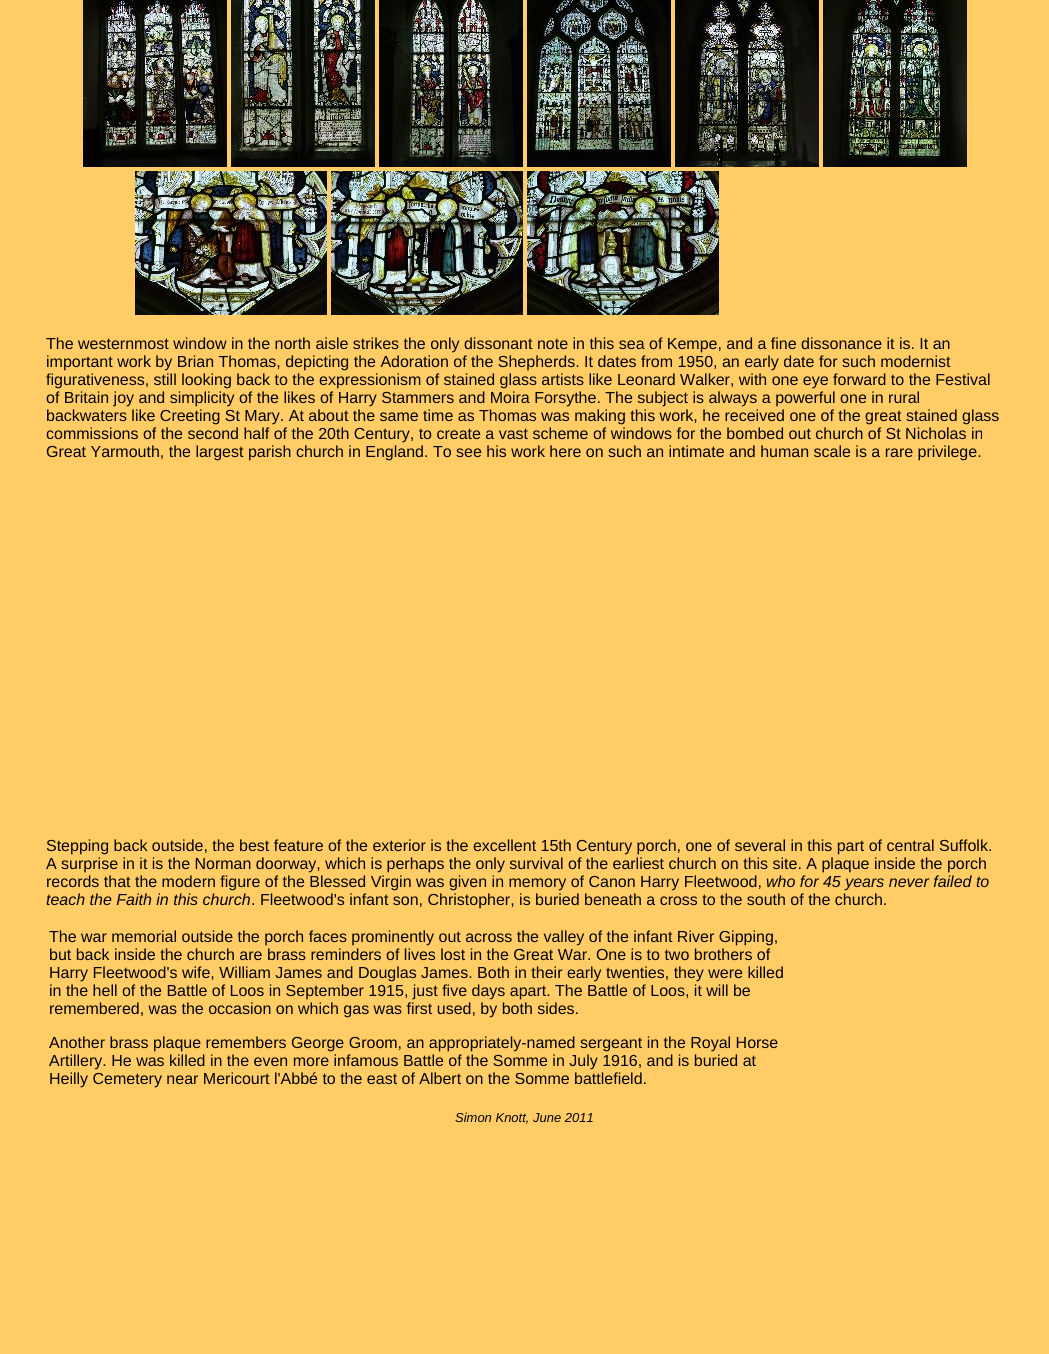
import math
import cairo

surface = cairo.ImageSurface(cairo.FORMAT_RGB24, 1049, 1354)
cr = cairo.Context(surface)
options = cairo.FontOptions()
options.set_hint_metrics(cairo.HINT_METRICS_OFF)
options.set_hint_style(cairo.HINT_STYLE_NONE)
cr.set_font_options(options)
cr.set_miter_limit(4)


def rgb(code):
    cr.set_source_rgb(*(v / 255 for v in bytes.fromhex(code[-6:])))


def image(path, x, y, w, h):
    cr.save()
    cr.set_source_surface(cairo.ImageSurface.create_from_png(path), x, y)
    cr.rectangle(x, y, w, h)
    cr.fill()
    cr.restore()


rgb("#ffcc66")
cr.paint()
image("img/1.png", 83, 0, 144, 167)
image("img/2.png", 231, 0, 144, 167)
image("img/3.png", 379, 0, 144, 167)
image("img/4.png", 527, 0, 144, 167)
image("img/5.png", 675, 0, 144, 167)
image("img/6.png", 823, 0, 144, 167)
image("img/7.png", 135, 171, 192, 144)
image("img/8.png", 331, 171, 192, 144)
image("img/9.png", 527, 171, 192, 144)
cr.select_font_face("Liberation Sans")
cr.set_font_size(16)
rgb("#000000")
for x, y, s in [
    (46, 349, "The westernmost window in the north aisle strikes the only dissonant note in this sea of Kempe, and a fine dissonance it is. It an"),
    (46, 367, "important work by Brian Thomas, depicting the Adoration of the Shepherds. It dates from 1950, an early date for such modernist"),
    (46, 385, "figurativeness, still looking back to the expressionism of stained glass artists like Leonard Walker, with one eye forward to the Festival"),
    (46, 403, "of Britain joy and simplicity of the likes of Harry Stammers and Moira Forsythe. The subject is always a powerful one in rural"),
    (46, 421, "backwaters like Creeting St Mary. At about the same time as Thomas was making this work, he received one of the great stained glass"),
    (46, 439, "commissions of the second half of the 20th Century, to create a vast scheme of windows for the bombed out church of St Nicholas in"),
    (46, 457, "Great Yarmouth, the largest parish church in England. To see his work here on such an intimate and human scale is a rare privilege."),
    (46, 851, "Stepping back outside, the best feature of the exterior is the excellent 15th Century porch, one of several in this part of central Suffolk."),
    (46, 869, "A surprise in it is the Norman doorway, which is perhaps the only survival of the earliest church on this site. A plaque inside the porch"),
    (46, 887, "records that the modern figure of the Blessed Virgin was given in memory of Canon Harry Fleetwood,"),
]:
    cr.move_to(x, y)
    cr.show_text(s)
cr.select_font_face("Liberation Sans", cairo.FONT_SLANT_ITALIC)
cr.move_to(766, 887)
cr.show_text("who for 45 years never failed to")
cr.move_to(46, 905)
cr.show_text("teach the Faith in this church")
cr.select_font_face("Liberation Sans")
for x, y, s in [
    (251, 905, ". Fleetwood's infant son, Christopher, is buried beneath a cross to the south of the church."),
    (49, 942, "The war memorial outside the porch faces prominently out across the valley of the infant River Gipping,"),
    (49, 960, "but back inside the church are brass reminders of lives lost in the Great War. One is to two brothers of"),
    (49, 978, "Harry Fleetwood's wife, William James and Douglas James. Both in their early twenties, they were killed"),
    (49, 996, "in the hell of the Battle of Loos in September 1915, just five days apart. The Battle of Loos, it will be"),
    (49, 1014, "remembered, was the occasion on which gas was first used, by both sides."),
    (49, 1048, "Another brass plaque remembers George Groom, an appropriately-named sergeant in the Royal Horse"),
    (49, 1066, "Artillery. He was killed in the even more infamous Battle of the Somme in July 1916, and is buried at"),
    (49, 1084, "Heilly Cemetery near Mericourt l'Abbé to the east of Albert on the Somme battlefield."),
]:
    cr.move_to(x, y)
    cr.show_text(s)
cr.select_font_face("Liberation Sans", cairo.FONT_SLANT_ITALIC)
cr.set_font_size(13)
cr.move_to(455, 1122)
cr.show_text("Simon Knott, June 2011")
surface.write_to_png("page.png")
